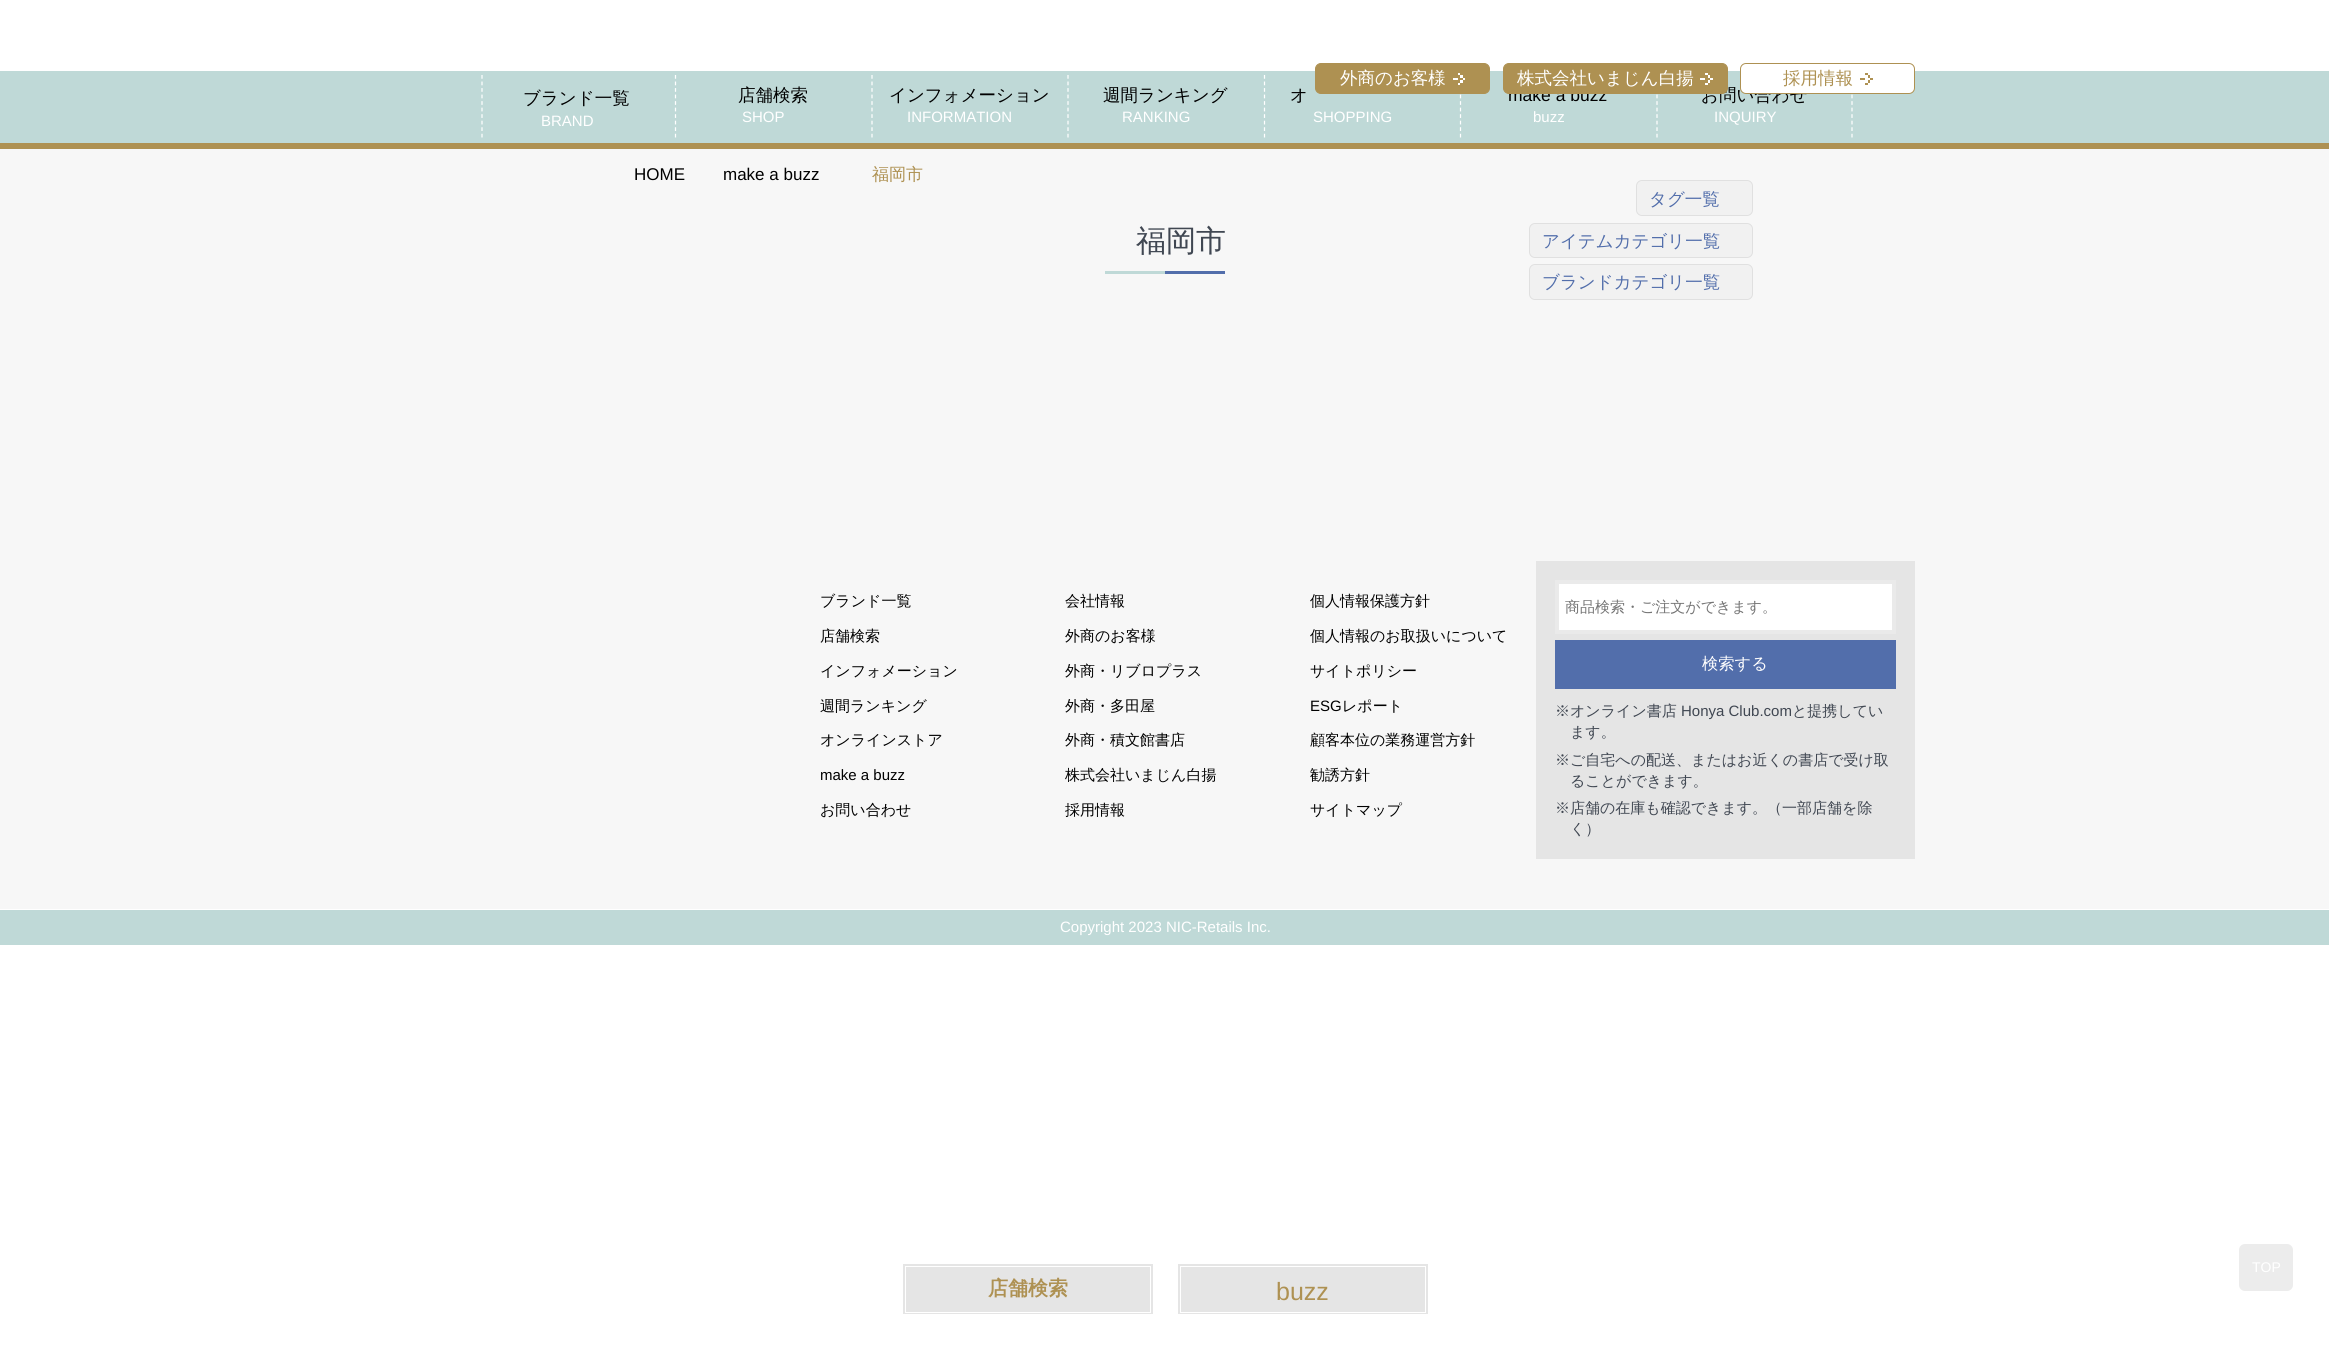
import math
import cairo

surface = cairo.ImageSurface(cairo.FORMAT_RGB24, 2329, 1353)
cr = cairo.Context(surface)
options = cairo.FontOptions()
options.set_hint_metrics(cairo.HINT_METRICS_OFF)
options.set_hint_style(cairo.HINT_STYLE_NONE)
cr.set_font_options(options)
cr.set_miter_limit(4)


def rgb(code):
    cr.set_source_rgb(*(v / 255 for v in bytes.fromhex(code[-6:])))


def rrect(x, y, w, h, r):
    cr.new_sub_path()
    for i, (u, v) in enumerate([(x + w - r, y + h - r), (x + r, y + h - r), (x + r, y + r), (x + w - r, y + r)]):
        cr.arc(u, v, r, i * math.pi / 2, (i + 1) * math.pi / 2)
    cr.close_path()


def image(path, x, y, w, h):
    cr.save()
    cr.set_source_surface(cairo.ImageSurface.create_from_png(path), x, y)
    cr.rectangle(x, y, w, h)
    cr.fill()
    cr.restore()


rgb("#ffffff")
cr.paint()
rgb("#bfd9d7")
cr.rectangle(0, 71, 2329, 72)
cr.fill()
rgb("#ae9152")
cr.rectangle(0, 143, 2329, 6)
cr.fill()
cr.new_path()
cr.move_to(1460.5, 75)
cr.line_to(1460.5, 137.5)
rgb("#ffffff")
cr.set_line_width(1.2)
cr.set_dash([3.75, 2.78])
cr.stroke()
rgb("#ae9152")
rrect(1315.5, 63.5, 174, 30, 5.5)
cr.fill_preserve()
cr.set_line_width(1)
cr.set_dash([])
cr.stroke()
image("img/1.png", 1453, 73, 12, 12)
cr.new_path()
cr.move_to(482, 75)
cr.line_to(482, 137.5)
rgb("#ffffff")
cr.set_line_width(1.2)
cr.set_dash([3.75, 2.78])
cr.stroke()
cr.new_path()
cr.move_to(675.5, 75)
cr.line_to(675.5, 137.5)
cr.stroke()
cr.new_path()
cr.move_to(872, 75)
cr.line_to(872, 137.5)
cr.stroke()
cr.new_path()
cr.move_to(1068, 75)
cr.line_to(1068, 137.5)
cr.stroke()
cr.new_path()
cr.move_to(1264.5, 75)
cr.line_to(1264.5, 137.5)
cr.stroke()
cr.new_path()
cr.move_to(1657, 75)
cr.line_to(1657, 137.5)
cr.stroke()
cr.new_path()
cr.move_to(1852, 75)
cr.line_to(1852, 137.5)
cr.stroke()
for x, y, w, h, color in [
    (0, 149, 2329, 760, "#f7f7f7"),
    (1105, 271, 60, 3, "#bfd9d7"),
    (1165, 271, 60, 3, "#526eab"),
]:
    rgb(color)
    cr.rectangle(x, y, w, h)
    cr.fill()
rgb("#f1f1f1")
rrect(1636.5, 180.5, 116, 35, 5.5)
cr.fill_preserve()
rgb("#e0e0e0")
cr.set_line_width(1)
cr.set_dash([])
cr.stroke()
rgb("#f1f1f1")
rrect(1529.5, 223.5, 223, 34, 5.5)
cr.fill_preserve()
rgb("#e0e0e0")
cr.stroke()
rgb("#f1f1f1")
rrect(1529.5, 264.5, 223, 35, 5.5)
cr.fill_preserve()
rgb("#e0e0e0")
cr.stroke()
rgb("#e5e5e5")
cr.rectangle(1536, 561, 379, 298)
cr.fill()
rgb("#ffffff")
cr.rectangle(1557, 582, 337, 50)
cr.fill_preserve()
rgb("#eaeaea")
cr.set_line_width(4)
cr.stroke()
rgb("#526eab")
cr.rectangle(1555, 640, 341, 49)
cr.fill()
rgb("#bfd9d7")
cr.rectangle(0, 910, 2329, 35)
cr.fill()
rgb("#ececec")
rrect(2239, 1244, 54, 47, 6)
cr.fill()
rgb("#e5e5e5")
cr.rectangle(903, 1264, 250, 50)
cr.fill()
cr.rectangle(905.5, 1266.5, 245, 46)
rgb("#ffffff")
cr.set_line_width(1)
cr.stroke()
rgb("#e5e5e5")
cr.rectangle(1178, 1264, 250, 50)
cr.fill()
cr.rectangle(1180.5, 1266.5, 245, 46)
rgb("#ffffff")
cr.stroke()
cr.select_font_face("WenQuanYi Zen Hei Medium")
cr.set_font_size(17.5)
cr.move_to(1340, 84)
cr.show_text("外商のお客様")
rgb("#000000")
cr.move_to(523, 104)
cr.show_text("ブランド一覧")
cr.select_font_face("Liberation Sans")
cr.set_font_size(15)
rgb("#ffffff")
cr.move_to(541, 126)
cr.show_text("BRAND")
cr.select_font_face("WenQuanYi Zen Hei Medium")
cr.set_font_size(17.5)
rgb("#000000")
cr.move_to(738, 101)
cr.show_text("店舗検索")
cr.select_font_face("Liberation Sans")
cr.set_font_size(15)
rgb("#ffffff")
cr.move_to(742, 122)
cr.show_text("SHOP")
cr.select_font_face("WenQuanYi Zen Hei Medium")
cr.set_font_size(17.5)
rgb("#000000")
cr.move_to(889, 101)
cr.show_text("インフォメーション")
cr.select_font_face("Liberation Sans")
cr.set_font_size(15)
rgb("#ffffff")
cr.move_to(907, 122)
cr.show_text("INFORMATION")
cr.select_font_face("WenQuanYi Zen Hei Medium")
cr.set_font_size(17.5)
rgb("#000000")
cr.move_to(1103, 101)
cr.show_text("週間ランキング")
cr.select_font_face("Liberation Sans")
cr.set_font_size(15)
rgb("#ffffff")
cr.move_to(1122, 122)
cr.show_text("RANKING")
cr.select_font_face("WenQuanYi Zen Hei Medium")
cr.set_font_size(17.5)
rgb("#000000")
cr.move_to(1290, 101)
cr.show_text("オ")
cr.select_font_face("Liberation Sans")
cr.set_font_size(15)
rgb("#ffffff")
cr.move_to(1313, 122)
cr.show_text("SHOPPING")
cr.set_font_size(17.5)
rgb("#000000")
cr.move_to(1508, 101)
cr.show_text("make a buzz")
cr.set_font_size(15)
rgb("#ffffff")
cr.move_to(1533, 122)
cr.show_text("buzz")
cr.select_font_face("WenQuanYi Zen Hei Medium")
cr.set_font_size(17.5)
rgb("#000000")
cr.move_to(1701, 101)
cr.show_text("お問い合わせ")
rgb("#ffffff")
rrect(1740.5, 63.5, 174, 30, 5.5)
cr.fill_preserve()
rgb("#ae9152")
cr.stroke()
image("img/3.png", 1860, 73, 13, 12)
cr.move_to(1783, 84)
cr.show_text("採用情報")
rrect(1503.5, 63.5, 224, 30, 5.5)
cr.fill_preserve()
cr.stroke()
image("img/2.png", 1700, 73, 13, 12)
rgb("#ffffff")
cr.move_to(1517, 84)
cr.show_text("株式会社いまじん白揚")
cr.select_font_face("Liberation Sans")
cr.set_font_size(15)
cr.move_to(1714, 122)
cr.show_text("INQUIRY")
cr.set_font_size(17)
rgb("#000000")
cr.move_to(634, 180)
cr.show_text("HOME")
cr.move_to(723, 180)
cr.show_text("make a buzz")
cr.select_font_face("WenQuanYi Zen Hei Medium")
rgb("#ae9152")
cr.move_to(872, 180)
cr.show_text("福岡市")
cr.set_font_size(30)
rgb("#404752")
cr.move_to(1136, 251)
cr.show_text("福岡市")
cr.set_font_size(17.5)
rgb("#526eab")
for x, y, s in [
    (1649, 205, "タグ一覧"),
    (1542, 247, "アイテムカテゴリ一覧"),
    (1542, 288, "ブランドカテゴリ一覧"),
]:
    cr.move_to(x, y)
    cr.show_text(s)
cr.set_font_size(15)
rgb("#000000")
for x, y, s in [
    (820, 606, "ブランド一覧"),
    (820, 641, "店舗検索"),
    (820, 676, "インフォメーション"),
    (820, 711, "週間ランキング"),
    (820, 745, "オンラインストア"),
]:
    cr.move_to(x, y)
    cr.show_text(s)
cr.select_font_face("Liberation Sans")
cr.move_to(820, 780)
cr.show_text("make a buzz")
cr.select_font_face("WenQuanYi Zen Hei Medium")
for x, y, s in [
    (820, 815, "お問い合わせ"),
    (1065, 606, "会社情報"),
    (1065, 641, "外商のお客様"),
    (1065, 676, "外商・リブロプラス"),
    (1065, 711, "外商・多田屋"),
    (1065, 745, "外商・積文館書店"),
    (1065, 780, "株式会社いまじん白揚"),
    (1065, 815, "採用情報"),
    (1310, 606, "個人情報保護方針"),
    (1310, 641, "個人情報のお取扱いについて"),
    (1310, 676, "サイトポリシー"),
]:
    cr.move_to(x, y)
    cr.show_text(s)
cr.select_font_face("Liberation Sans")
cr.move_to(1310, 711)
cr.show_text("ESG")
cr.select_font_face("WenQuanYi Zen Hei Medium")
for x, y, s in [
    (1342, 711, "レポート"),
    (1310, 745, "顧客本位の業務運営方針"),
    (1310, 780, "勧誘方針"),
    (1310, 815, "サイトマップ"),
]:
    cr.move_to(x, y)
    cr.show_text(s)
rgb("#757575")
cr.move_to(1565, 612)
cr.show_text("商品検索・ご注文ができます。")
cr.set_font_size(16.25)
rgb("#ffffff")
cr.move_to(1702, 669)
cr.show_text("検索する")
cr.set_font_size(15)
rgb("#404752")
cr.move_to(1555, 716)
cr.show_text("※オンライン書店")
cr.select_font_face("Liberation Sans")
cr.move_to(1681, 716)
cr.show_text("Honya Club.com")
cr.select_font_face("WenQuanYi Zen Hei Medium")
for x, y, s in [
    (1792, 716, "と提携してい"),
    (1570, 737, "ます。"),
    (1555, 765, "※ご自宅への配送、またはお近くの書店で受け取"),
    (1570, 786, "ることができます。"),
    (1555, 813, "※店舗の在庫も確認できます。（一部店舗を除"),
    (1570, 834, "く）"),
]:
    cr.move_to(x, y)
    cr.show_text(s)
cr.select_font_face("Liberation Sans")
rgb("#ffffff")
cr.move_to(1060, 932)
cr.show_text("Copyright 2023 NIC-Retails Inc.")
cr.set_font_size(14)
cr.move_to(2252, 1272)
cr.show_text("TOP")
cr.select_font_face("WenQuanYi Zen Hei", cairo.FONT_SLANT_NORMAL, cairo.FONT_WEIGHT_BOLD)
cr.set_font_size(20)
rgb("#ae9152")
cr.move_to(988, 1295)
cr.show_text("店舗検索")
cr.select_font_face("Liberation Sans")
cr.set_font_size(25)
cr.move_to(1276, 1300)
cr.show_text("buzz")
surface.write_to_png("page.png")
